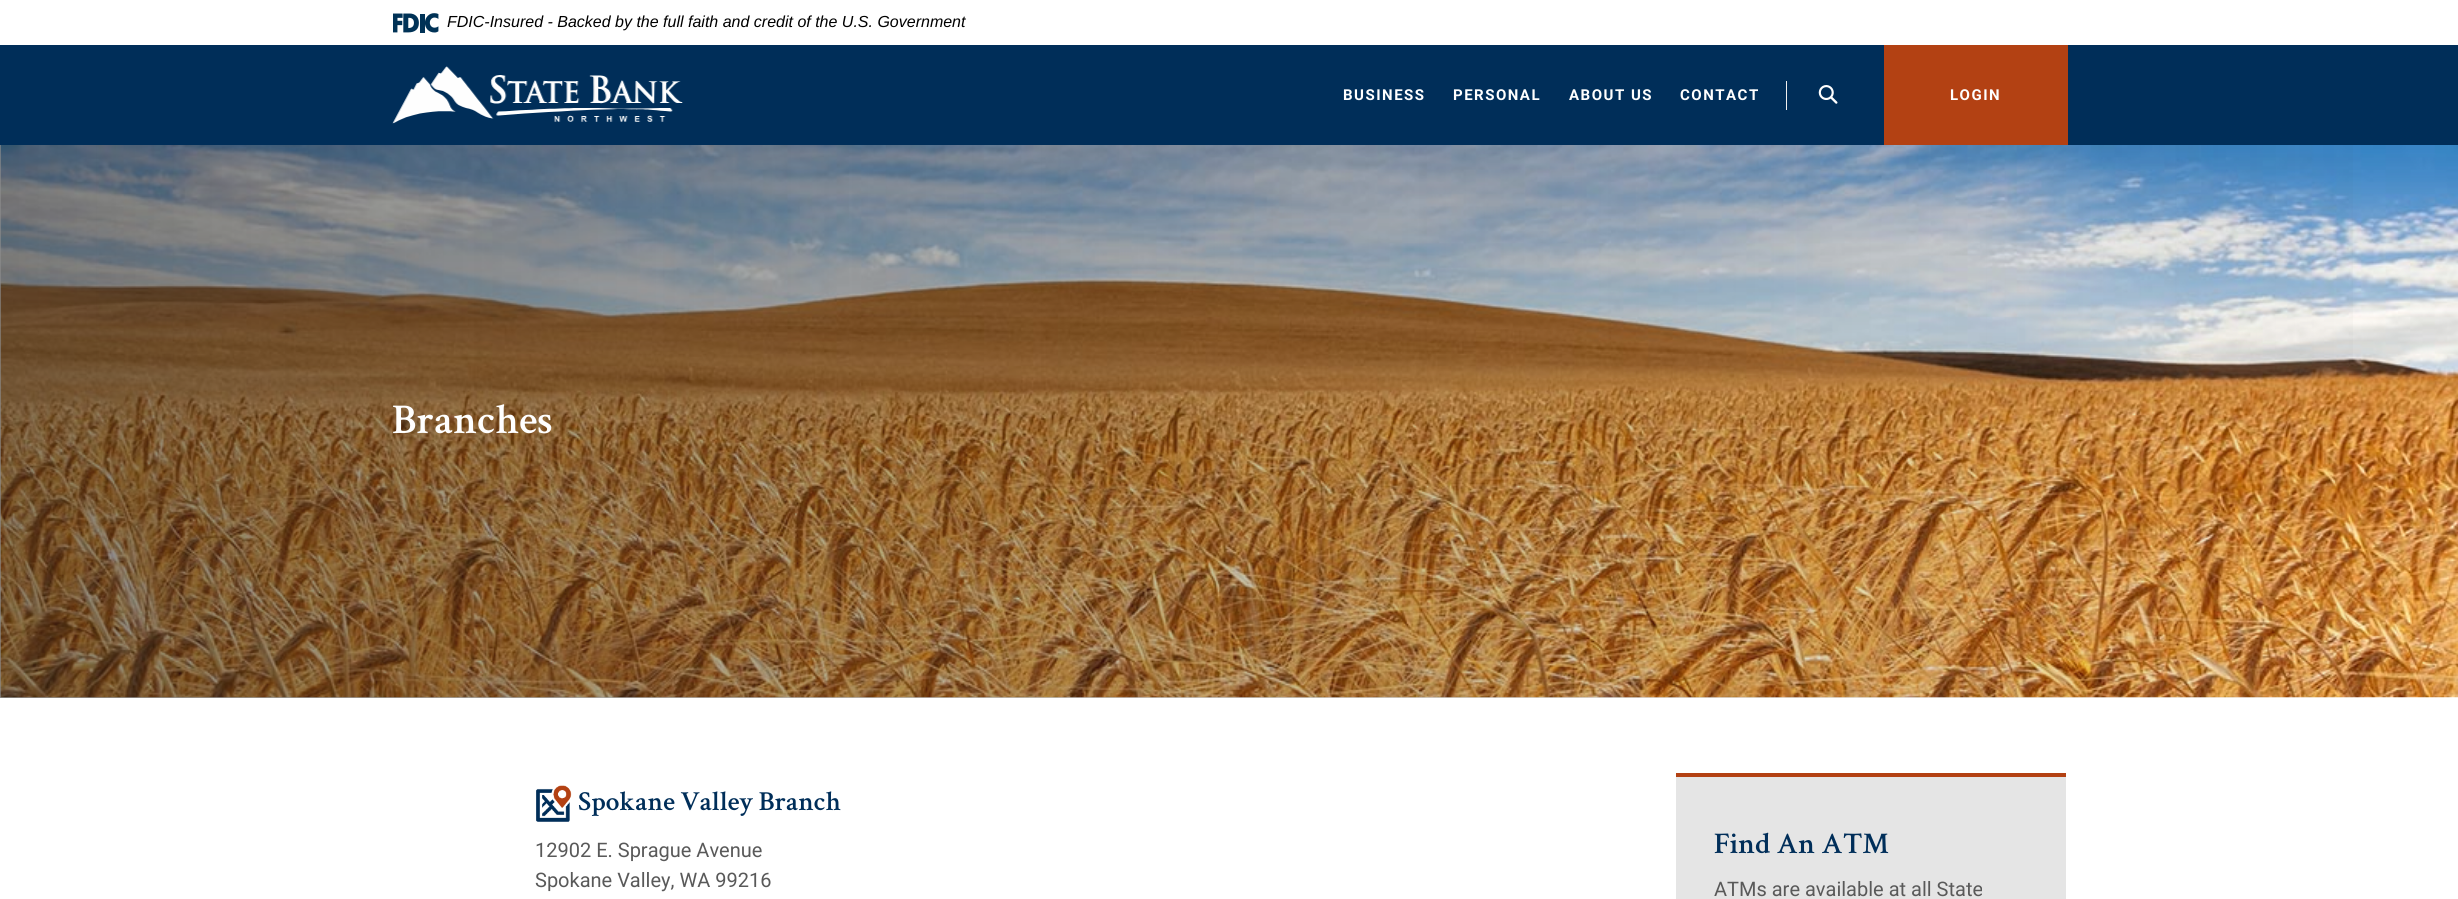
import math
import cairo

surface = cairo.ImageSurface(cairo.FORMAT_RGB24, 2458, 899)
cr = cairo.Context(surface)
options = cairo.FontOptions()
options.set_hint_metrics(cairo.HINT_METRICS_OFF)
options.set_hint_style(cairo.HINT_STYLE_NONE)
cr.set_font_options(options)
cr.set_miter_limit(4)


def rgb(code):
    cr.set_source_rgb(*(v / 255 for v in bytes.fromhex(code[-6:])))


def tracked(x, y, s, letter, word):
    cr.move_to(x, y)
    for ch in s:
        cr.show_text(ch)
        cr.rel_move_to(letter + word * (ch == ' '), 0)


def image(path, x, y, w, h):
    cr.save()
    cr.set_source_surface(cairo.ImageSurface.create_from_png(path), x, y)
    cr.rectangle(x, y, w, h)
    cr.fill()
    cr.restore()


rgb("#ffffff")
cr.paint()
rgb("#002e59")
cr.rectangle(0, 45, 2458, 100)
cr.fill()
image("img/1.png", 393, 13, 46, 20)
image("img/2.png", 392, 66, 291, 58)
rgb("#efefef")
cr.rectangle(1786, 81, 1, 29)
cr.fill()
image("img/3.png", 1818, 85, 20, 19)
rgb("#b34113")
cr.rectangle(1884, 45, 184, 100)
cr.fill()
image("img/4.png", 0, 145, 2458, 553)
gradient = cairo.LinearGradient(0, 421, 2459, 421)
gradient.add_color_stop_rgba(0, 0.102, 0.102, 0.102, 0.5)
gradient.add_color_stop_rgba(1, 0.102, 0.102, 0.102, 0)
cr.set_source(gradient)
cr.rectangle(0, 145, 2353, 553)
cr.fill()
image("img/5.png", 536, 785, 36, 37)
rgb("#e5e5e5")
cr.rectangle(1676, 777, 390, 122)
cr.fill()
rgb("#b34113")
cr.rectangle(1676, 773, 390, 4)
cr.fill()
cr.select_font_face("Liberation Sans", cairo.FONT_SLANT_ITALIC)
cr.set_font_size(16)
rgb("#000000")
cr.move_to(447, 27)
cr.show_text("FDIC-Insured - Backed by the full faith and credit of the U.S. Government")
cr.select_font_face("Roboto", cairo.FONT_SLANT_NORMAL, cairo.FONT_WEIGHT_BOLD)
cr.set_font_size(15)
rgb("#ffffff")
for x, y, s in [
    (1343, 100, "BUSINESS"),
    (1453, 100, "PERSONAL"),
    (1569, 100, "ABOUT US"),
    (1680, 100, "CONTACT"),
    (1950, 100, "LOGIN"),
]:
    tracked(x, y, s, 1.5, 0)
cr.select_font_face("Crimson Text SemiBold")
cr.set_font_size(42.5)
cr.move_to(392, 433)
cr.show_text("Branches")
cr.set_font_size(27.5)
rgb("#002e59")
cr.move_to(578, 810)
cr.show_text("Spokane Valley Branch")
cr.select_font_face("Roboto")
cr.set_font_size(20)
rgb("#595959")
cr.move_to(535, 857)
cr.show_text("12902 E. Sprague Avenue")
cr.move_to(535, 887)
cr.show_text("Spokane Valley, WA 99216")
cr.select_font_face("Crimson Text SemiBold")
cr.set_font_size(30)
rgb("#002e59")
cr.move_to(1714, 853)
cr.show_text("Find An ATM")
cr.select_font_face("Roboto")
cr.set_font_size(20)
rgb("#595959")
cr.move_to(1714, 896)
cr.show_text("ATMs are available at all State")
surface.write_to_png("page.png")
